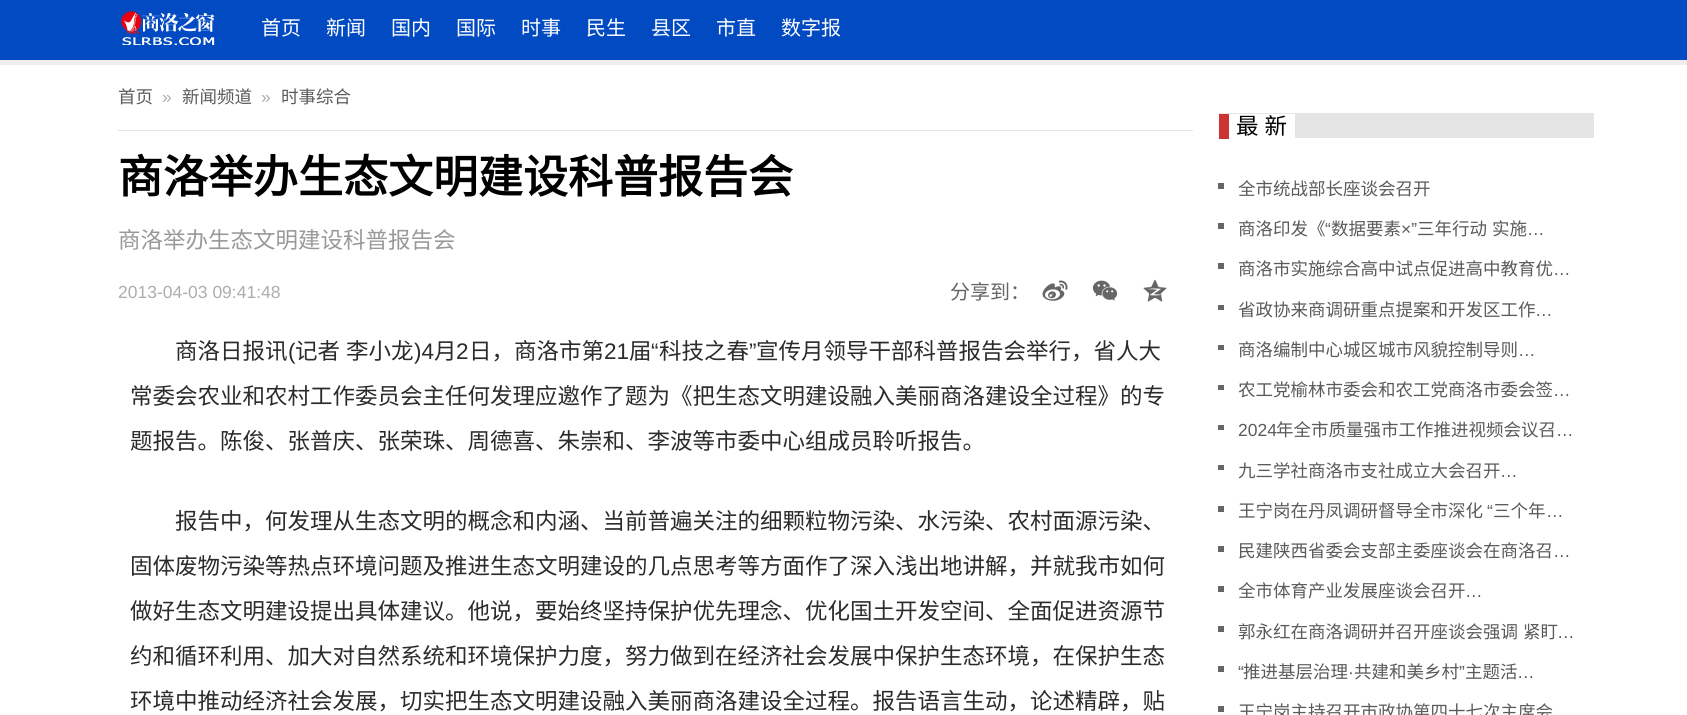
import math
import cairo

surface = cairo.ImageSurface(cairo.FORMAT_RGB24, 1687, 715)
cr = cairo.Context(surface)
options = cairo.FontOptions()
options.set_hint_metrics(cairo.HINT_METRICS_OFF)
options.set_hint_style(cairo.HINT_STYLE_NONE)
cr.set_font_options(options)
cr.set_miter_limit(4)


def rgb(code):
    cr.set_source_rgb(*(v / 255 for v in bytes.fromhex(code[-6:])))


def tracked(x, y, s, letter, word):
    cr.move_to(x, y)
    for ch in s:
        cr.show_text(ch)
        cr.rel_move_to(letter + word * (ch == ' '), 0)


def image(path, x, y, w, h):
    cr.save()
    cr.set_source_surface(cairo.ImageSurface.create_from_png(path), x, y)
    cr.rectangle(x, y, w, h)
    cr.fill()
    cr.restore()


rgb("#ffffff")
cr.paint()
rgb("#024ac2")
cr.rectangle(0, 0, 1687, 60)
cr.fill()
rgb("#ededed")
cr.rectangle(0, 60, 1687, 5)
cr.fill()
image("img/1.png", 121, 11, 94, 34)
rgb("#e5e5e5")
cr.rectangle(118, 130, 1075, 1)
cr.fill()
image("img/2.png", 1042, 280, 26, 21)
image("img/3.png", 1092, 280, 26, 21)
image("img/4.png", 1143, 279, 24, 23)
for x, y, w, h, color in [
    (1219, 113, 375, 25, "#e5e5e5"),
    (1229, 114, 66, 24, "#ffffff"),
    (1219, 114, 10, 25, "#cc3333"),
    (1218, 183, 6, 6, "#666666"),
    (1218, 223, 6, 6, "#666666"),
    (1218, 263, 6, 6, "#666666"),
    (1218, 305, 6, 5, "#666666"),
    (1218, 345, 6, 5, "#666666"),
    (1218, 385, 6, 5, "#666666"),
    (1218, 425, 6, 5, "#666666"),
    (1218, 465, 6, 5, "#666666"),
    (1218, 506, 6, 6, "#666666"),
    (1218, 546, 6, 6, "#666666"),
    (1218, 586, 6, 6, "#666666"),
    (1218, 626, 6, 6, "#666666"),
    (1218, 666, 6, 6, "#666666"),
    (1218, 706, 6, 6, "#666666"),
]:
    rgb(color)
    cr.rectangle(x, y, w, h)
    cr.fill()
cr.select_font_face("Noto Sans CJK SC")
cr.set_font_size(20)
rgb("#ffffff")
for x, y, s in [
    (261, 35, "首页"),
    (326, 35, "新闻"),
    (391, 35, "国内"),
    (456, 35, "国际"),
    (521, 35, "时事"),
    (586, 35, "民生"),
    (651, 35, "县区"),
    (716, 35, "市直"),
    (781, 35, "数字报"),
]:
    cr.move_to(x, y)
    cr.show_text(s)
cr.set_font_size(17.5)
rgb("#5a5a5a")
cr.move_to(118, 103)
cr.show_text("首页")
cr.select_font_face("Liberation Sans")
rgb("#adadad")
cr.move_to(162, 103)
cr.show_text("»")
cr.select_font_face("Noto Sans CJK SC")
rgb("#5a5a5a")
cr.move_to(182, 103)
cr.show_text("新闻频道")
cr.select_font_face("Liberation Sans")
rgb("#adadad")
cr.move_to(261, 103)
cr.show_text("»")
cr.select_font_face("Noto Sans CJK SC")
rgb("#5a5a5a")
cr.move_to(281, 103)
cr.show_text("时事综合")
cr.select_font_face("Noto Sans CJK SC", cairo.FONT_SLANT_NORMAL, cairo.FONT_WEIGHT_BOLD)
cr.set_font_size(45)
rgb("#000000")
cr.move_to(118, 193)
cr.show_text("商洛举办生态文明建设科普报告会")
cr.select_font_face("Noto Sans CJK SC")
cr.set_font_size(22.5)
rgb("#999999")
cr.move_to(118, 248)
cr.show_text("商洛举办生态文明建设科普报告会")
cr.select_font_face("Liberation Sans")
cr.set_font_size(17.5)
rgb("#adadad")
cr.move_to(118, 298)
cr.show_text("2013-04-03 09:41:48")
cr.select_font_face("Noto Sans CJK SC")
cr.set_font_size(20)
rgb("#666666")
cr.move_to(950, 299)
cr.show_text("分享到：")
cr.set_font_size(22.5)
rgb("#2b2b2b")
cr.move_to(175, 359)
cr.show_text("商洛日报讯")
cr.select_font_face("Liberation Sans")
cr.move_to(288, 359)
cr.show_text("(")
cr.select_font_face("Noto Sans CJK SC")
tracked(295, 359, "记者 李小龙", 0, 1)
cr.select_font_face("Liberation Sans")
cr.move_to(414, 359)
cr.show_text(")4")
cr.select_font_face("Noto Sans CJK SC")
cr.move_to(434, 359)
cr.show_text("月")
cr.select_font_face("Liberation Sans")
cr.move_to(456, 359)
cr.show_text("2")
cr.select_font_face("Noto Sans CJK SC")
cr.move_to(469, 359)
cr.show_text("日，商洛市第")
cr.select_font_face("Liberation Sans")
cr.move_to(604, 359)
cr.show_text("21")
cr.select_font_face("Noto Sans CJK SC")
cr.move_to(629, 359)
cr.show_text("届")
cr.select_font_face("Liberation Sans")
cr.move_to(651, 359)
cr.show_text("“")
cr.select_font_face("Noto Sans CJK SC")
cr.move_to(659, 359)
cr.show_text("科技之春")
cr.select_font_face("Liberation Sans")
cr.move_to(749, 359)
cr.show_text("”")
cr.select_font_face("Noto Sans CJK SC")
for x, y, s in [
    (756, 359, "宣传月领导干部科普报告会举行，省人大"),
    (130, 404, "常委会农业和农村工作委员会主任何发理应邀作了题为《把生态文明建设融入美丽商洛建设全过程》的专"),
    (130, 449, "题报告。陈俊、张普庆、张荣珠、周德喜、朱崇和、李波等市委中心组成员聆听报告。"),
    (175, 529, "报告中，何发理从生态文明的概念和内涵、当前普遍关注的细颗粒物污染、水污染、农村面源污染、"),
    (130, 574, "固体废物污染等热点环境问题及推进生态文明建设的几点思考等方面作了深入浅出地讲解，并就我市如何"),
    (130, 619, "做好生态文明建设提出具体建议。他说，要始终坚持保护优先理念、优化国土开发空间、全面促进资源节"),
    (130, 664, "约和循环利用、加大对自然系统和环境保护力度，努力做到在经济社会发展中保护生态环境，在保护生态"),
    (130, 709, "环境中推动经济社会发展，切实把生态文明建设融入美丽商洛建设全过程。报告语言生动，论述精辟，贴"),
]:
    cr.move_to(x, y)
    cr.show_text(s)
rgb("#000000")
tracked(1236, 134, "最 新", 0, 1)
cr.set_font_size(17.5)
rgb("#5a5a5a")
cr.move_to(1238, 195)
cr.show_text("全市统战部长座谈会召开")
cr.move_to(1238, 235)
cr.show_text("商洛印发《")
cr.select_font_face("Liberation Sans")
cr.move_to(1325, 235)
cr.show_text("“")
cr.select_font_face("Noto Sans CJK SC")
cr.move_to(1331, 235)
cr.show_text("数据要素")
cr.select_font_face("Liberation Sans")
cr.move_to(1401, 235)
cr.show_text("×”")
cr.select_font_face("Noto Sans CJK SC")
tracked(1417, 235, "三年行动 实施", 0, 1)
cr.select_font_face("Liberation Sans")
cr.move_to(1527, 235)
cr.show_text("…")
cr.select_font_face("Noto Sans CJK SC")
cr.move_to(1238, 275)
cr.show_text("商洛市实施综合高中试点促进高中教育优")
cr.select_font_face("Liberation Sans")
cr.move_to(1553, 275)
cr.show_text("…")
cr.select_font_face("Noto Sans CJK SC")
cr.move_to(1238, 316)
cr.show_text("省政协来商调研重点提案和开发区工作")
cr.select_font_face("Liberation Sans")
cr.move_to(1535, 316)
cr.show_text("…")
cr.select_font_face("Noto Sans CJK SC")
cr.move_to(1238, 356)
cr.show_text("商洛编制中心城区城市风貌控制导则")
cr.select_font_face("Liberation Sans")
cr.move_to(1518, 356)
cr.show_text("…")
cr.select_font_face("Noto Sans CJK SC")
cr.move_to(1238, 396)
cr.show_text("农工党榆林市委会和农工党商洛市委会签")
cr.select_font_face("Liberation Sans")
cr.move_to(1553, 396)
cr.show_text("…")
cr.move_to(1238, 436)
cr.show_text("2024")
cr.select_font_face("Noto Sans CJK SC")
cr.move_to(1276, 436)
cr.show_text("年全市质量强市工作推进视频会议召")
cr.select_font_face("Liberation Sans")
cr.move_to(1556, 436)
cr.show_text("…")
cr.select_font_face("Noto Sans CJK SC")
cr.move_to(1238, 477)
cr.show_text("九三学社商洛市支社成立大会召开")
cr.select_font_face("Liberation Sans")
cr.move_to(1500, 477)
cr.show_text("…")
cr.select_font_face("Noto Sans CJK SC")
cr.move_to(1238, 517)
cr.show_text("王宁岗在丹凤调研督导全市深化")
cr.select_font_face("Liberation Sans")
cr.move_to(1487, 517)
cr.show_text("“")
cr.select_font_face("Noto Sans CJK SC")
cr.move_to(1493, 517)
cr.show_text("三个年")
cr.select_font_face("Liberation Sans")
cr.move_to(1546, 517)
cr.show_text("…")
cr.select_font_face("Noto Sans CJK SC")
cr.move_to(1238, 557)
cr.show_text("民建陕西省委会支部主委座谈会在商洛召")
cr.select_font_face("Liberation Sans")
cr.move_to(1553, 557)
cr.show_text("…")
cr.select_font_face("Noto Sans CJK SC")
cr.move_to(1238, 597)
cr.show_text("全市体育产业发展座谈会召开")
cr.select_font_face("Liberation Sans")
cr.move_to(1465, 597)
cr.show_text("…")
cr.select_font_face("Noto Sans CJK SC")
tracked(1238, 638, "郭永红在商洛调研并召开座谈会强调 紧盯", 0, 1)
cr.select_font_face("Liberation Sans")
cr.move_to(1557, 638)
cr.show_text("…")
cr.move_to(1238, 678)
cr.show_text("“")
cr.select_font_face("Noto Sans CJK SC")
cr.move_to(1243, 678)
cr.show_text("推进基层治理")
cr.move_to(1354, 678)
cr.show_text("共建和美乡村")
cr.select_font_face("Liberation Sans")
cr.move_to(1459, 678)
cr.show_text("”")
cr.select_font_face("Noto Sans CJK SC")
cr.move_to(1465, 678)
cr.show_text("主题活")
cr.select_font_face("Liberation Sans")
cr.move_to(1348, 678)
cr.show_text("·")
cr.move_to(1517, 678)
cr.show_text("…")
cr.select_font_face("Noto Sans CJK SC")
cr.move_to(1238, 718)
cr.show_text("王宁岗主持召开市政协第四十七次主席会")
surface.write_to_png("page.png")
